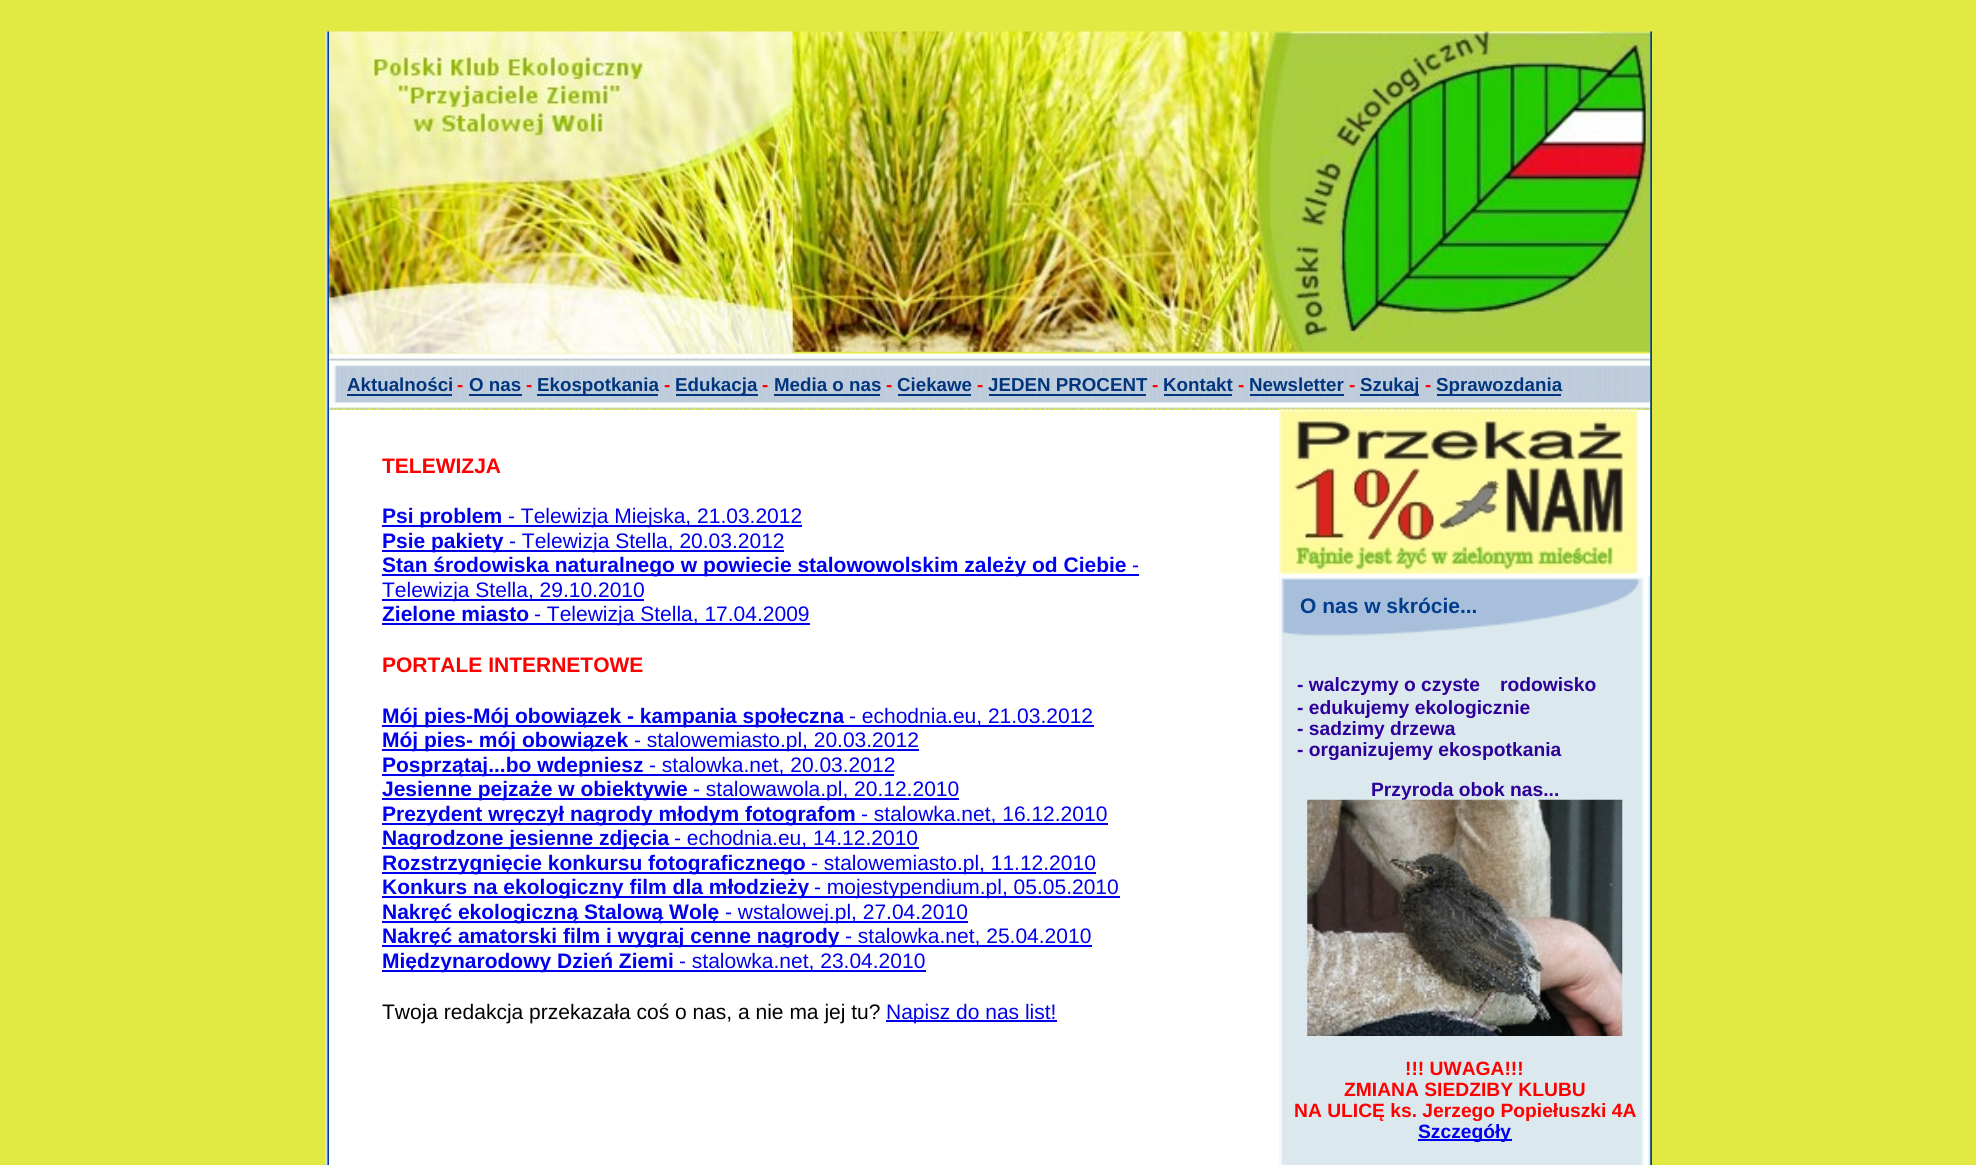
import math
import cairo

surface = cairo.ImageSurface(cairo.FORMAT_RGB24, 1976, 1165)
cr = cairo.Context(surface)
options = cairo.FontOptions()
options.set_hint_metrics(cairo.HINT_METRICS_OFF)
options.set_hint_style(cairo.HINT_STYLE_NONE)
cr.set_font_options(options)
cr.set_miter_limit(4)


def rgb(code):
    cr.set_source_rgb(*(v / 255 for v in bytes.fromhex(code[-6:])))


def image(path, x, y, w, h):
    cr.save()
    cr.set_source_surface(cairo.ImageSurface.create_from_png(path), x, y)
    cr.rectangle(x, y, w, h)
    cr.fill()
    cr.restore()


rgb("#e1e942")
cr.paint()
image("img/1.png", 325, 31, 4, 1134)
image("img/2.png", 329, 31, 464, 323)
image("img/3.png", 792, 31, 458, 321)
image("img/4.png", 1249, 31, 402, 321)
image("img/5.png", 329, 353, 1322, 57)
for x, y, w, h, color in [
    (347, 394, 105, 2, "#01367e"),
    (469, 394, 53, 2, "#01367e"),
    (537, 394, 121, 2, "#01367e"),
    (676, 394, 82, 2, "#01367e"),
    (774, 394, 106, 2, "#01367e"),
    (898, 394, 73, 2, "#01367e"),
    (989, 394, 157, 2, "#01367e"),
    (1164, 394, 68, 2, "#01367e"),
    (1250, 394, 94, 2, "#01367e"),
    (1360, 394, 59, 2, "#01367e"),
    (1437, 394, 124, 2, "#01367e"),
    (329, 410, 1321, 755, "#ffffff"),
    (382, 525, 420, 2, "#0000ee"),
    (382, 550, 120, 2, "#0000ee"),
    (502, 550, 282, 2, "#0000ee"),
    (382, 574, 743, 2, "#0000ee"),
    (1125, 574, 14, 2, "#0000ee"),
    (382, 599, 262, 2, "#0000ee"),
    (382, 623, 428, 2, "#0000ee"),
    (382, 725, 712, 2, "#0000ee"),
    (382, 749, 537, 2, "#0000ee"),
    (382, 774, 260, 2, "#0000ee"),
    (642, 774, 252, 2, "#0000ee"),
    (382, 798, 577, 2, "#0000ee"),
    (382, 823, 726, 2, "#0000ee"),
    (382, 847, 537, 2, "#0000ee"),
    (382, 872, 714, 2, "#0000ee"),
    (382, 896, 738, 2, "#0000ee"),
    (382, 921, 586, 2, "#0000ee"),
    (382, 945, 456, 2, "#0000ee"),
    (838, 945, 254, 2, "#0000ee"),
    (382, 970, 544, 2, "#0000ee"),
    (886, 1020, 171, 2, "#0000ee"),
]:
    rgb(color)
    cr.rectangle(x, y, w, h)
    cr.fill()
image("img/6.png", 1279, 409, 359, 165)
rgb("#dbe9ee")
cr.rectangle(1279, 576, 371, 589)
cr.fill()
image("img/7.png", 1279, 576, 370, 61)
image("img/8.png", 1279, 637, 370, 528)
rgb("#0000ee")
cr.rectangle(1418, 1139, 94, 2)
cr.fill()
image("img/10.png", 1650, 31, 2, 1134)
cr.select_font_face("Liberation Sans", cairo.FONT_SLANT_NORMAL, cairo.FONT_WEIGHT_BOLD)
cr.set_font_size(18.75)
rgb("#01367e")
cr.move_to(347, 391)
cr.show_text("Aktualności")
rgb("#ff0000")
cr.move_to(457, 391)
cr.show_text("-")
rgb("#01367e")
cr.move_to(469, 391)
cr.show_text("O nas")
rgb("#ff0000")
cr.move_to(526, 391)
cr.show_text("-")
rgb("#01367e")
cr.move_to(537, 391)
cr.show_text("Ekospotkania")
rgb("#ff0000")
cr.move_to(664, 391)
cr.show_text("-")
rgb("#01367e")
cr.move_to(675, 391)
cr.show_text("Edukacja")
rgb("#ff0000")
cr.move_to(762, 391)
cr.show_text("-")
rgb("#01367e")
cr.move_to(774, 391)
cr.show_text("Media o nas")
rgb("#ff0000")
cr.move_to(886, 391)
cr.show_text("-")
rgb("#01367e")
cr.move_to(897, 391)
cr.show_text("Ciekawe")
rgb("#ff0000")
cr.move_to(977, 391)
cr.show_text("-")
rgb("#01367e")
cr.move_to(988, 391)
cr.show_text("JEDEN PROCENT")
rgb("#ff0000")
cr.move_to(1152, 391)
cr.show_text("-")
rgb("#01367e")
cr.move_to(1163, 391)
cr.show_text("Kontakt")
rgb("#ff0000")
cr.move_to(1238, 391)
cr.show_text("-")
rgb("#01367e")
cr.move_to(1249, 391)
cr.show_text("Newsletter")
rgb("#ff0000")
cr.move_to(1349, 391)
cr.show_text("-")
rgb("#01367e")
cr.move_to(1360, 391)
cr.show_text("Szukaj")
rgb("#ff0000")
cr.move_to(1425, 391)
cr.show_text("-")
rgb("#01367e")
cr.move_to(1436, 391)
cr.show_text("Sprawozdania")
cr.set_font_size(21)
rgb("#ff0000")
cr.move_to(382, 473)
cr.show_text("TELEWIZJA")
rgb("#0000ee")
cr.move_to(382, 523)
cr.show_text("Psi problem")
cr.select_font_face("Liberation Sans")
cr.move_to(508, 523)
cr.show_text("- Telewizja Miejska, 21.03.2012")
cr.select_font_face("Liberation Sans", cairo.FONT_SLANT_NORMAL, cairo.FONT_WEIGHT_BOLD)
cr.move_to(382, 548)
cr.show_text("Psie pakiety")
cr.select_font_face("Liberation Sans")
cr.move_to(509, 548)
cr.show_text("- Telewizja Stella, 20.03.2012")
cr.select_font_face("Liberation Sans", cairo.FONT_SLANT_NORMAL, cairo.FONT_WEIGHT_BOLD)
cr.move_to(382, 572)
cr.show_text("Stan środowiska naturalnego w powiecie stalowowolskim zależy od Ciebie")
cr.select_font_face("Liberation Sans")
cr.move_to(1132, 572)
cr.show_text("-")
cr.move_to(382, 597)
cr.show_text("Telewizja Stella, 29.10.2010")
cr.select_font_face("Liberation Sans", cairo.FONT_SLANT_NORMAL, cairo.FONT_WEIGHT_BOLD)
cr.move_to(382, 621)
cr.show_text("Zielone miasto")
cr.select_font_face("Liberation Sans")
cr.move_to(534, 621)
cr.show_text("- Telewizja Stella, 17.04.2009")
cr.select_font_face("Liberation Sans", cairo.FONT_SLANT_NORMAL, cairo.FONT_WEIGHT_BOLD)
rgb("#ff0000")
cr.move_to(382, 672)
cr.show_text("PORTALE INTERNETOWE")
rgb("#0000ee")
cr.move_to(382, 723)
cr.show_text("Mój pies-Mój obowiązek - kampania społeczna")
cr.select_font_face("Liberation Sans")
cr.move_to(849, 723)
cr.show_text("- echodnia.eu, 21.03.2012")
cr.select_font_face("Liberation Sans", cairo.FONT_SLANT_NORMAL, cairo.FONT_WEIGHT_BOLD)
cr.move_to(382, 747)
cr.show_text("Mój pies- mój obowiązek")
cr.select_font_face("Liberation Sans")
cr.move_to(634, 747)
cr.show_text("- stalowemiasto.pl, 20.03.2012")
cr.select_font_face("Liberation Sans", cairo.FONT_SLANT_NORMAL, cairo.FONT_WEIGHT_BOLD)
cr.move_to(382, 772)
cr.show_text("Posprzątaj...bo wdepniesz")
cr.select_font_face("Liberation Sans")
cr.move_to(649, 772)
cr.show_text("- stalowka.net, 20.03.2012")
cr.select_font_face("Liberation Sans", cairo.FONT_SLANT_NORMAL, cairo.FONT_WEIGHT_BOLD)
cr.move_to(382, 796)
cr.show_text("Jesienne pejzaże w obiektywie")
cr.select_font_face("Liberation Sans")
cr.move_to(693, 796)
cr.show_text("- stalowawola.pl, 20.12.2010")
cr.select_font_face("Liberation Sans", cairo.FONT_SLANT_NORMAL, cairo.FONT_WEIGHT_BOLD)
cr.move_to(382, 821)
cr.show_text("Prezydent wręczył nagrody młodym fotografom")
cr.select_font_face("Liberation Sans")
cr.move_to(861, 821)
cr.show_text("- stalowka.net, 16.12.2010")
cr.select_font_face("Liberation Sans", cairo.FONT_SLANT_NORMAL, cairo.FONT_WEIGHT_BOLD)
cr.move_to(382, 845)
cr.show_text("Nagrodzone jesienne zdjęcia")
cr.select_font_face("Liberation Sans")
cr.move_to(674, 845)
cr.show_text("- echodnia.eu, 14.12.2010")
cr.select_font_face("Liberation Sans", cairo.FONT_SLANT_NORMAL, cairo.FONT_WEIGHT_BOLD)
cr.move_to(382, 870)
cr.show_text("Rozstrzygnięcie konkursu fotograficznego")
cr.select_font_face("Liberation Sans")
cr.move_to(811, 870)
cr.show_text("- stalowemiasto.pl, 11.12.2010")
cr.select_font_face("Liberation Sans", cairo.FONT_SLANT_NORMAL, cairo.FONT_WEIGHT_BOLD)
cr.move_to(382, 894)
cr.show_text("Konkurs na ekologiczny film dla młodzieży")
cr.select_font_face("Liberation Sans")
cr.move_to(814, 894)
cr.show_text("- mojestypendium.pl, 05.05.2010")
cr.select_font_face("Liberation Sans", cairo.FONT_SLANT_NORMAL, cairo.FONT_WEIGHT_BOLD)
cr.move_to(382, 919)
cr.show_text("Nakręć ekologiczną Stalową Wolę")
cr.select_font_face("Liberation Sans")
cr.move_to(725, 919)
cr.show_text("- wstalowej.pl, 27.04.2010")
cr.select_font_face("Liberation Sans", cairo.FONT_SLANT_NORMAL, cairo.FONT_WEIGHT_BOLD)
cr.move_to(382, 943)
cr.show_text("Nakręć amatorski film i wygraj cenne nagrody")
cr.select_font_face("Liberation Sans")
cr.move_to(845, 943)
cr.show_text("- stalowka.net, 25.04.2010")
cr.select_font_face("Liberation Sans", cairo.FONT_SLANT_NORMAL, cairo.FONT_WEIGHT_BOLD)
cr.move_to(382, 968)
cr.show_text("Międzynarodowy Dzień Ziemi")
cr.select_font_face("Liberation Sans")
cr.move_to(679, 968)
cr.show_text("- stalowka.net, 23.04.2010")
rgb("#000000")
cr.move_to(382, 1019)
cr.show_text("Twoja redakcja przekazała coś o nas, a nie ma jej tu?")
rgb("#0000ee")
cr.move_to(886, 1019)
cr.show_text("Napisz do nas list!")
cr.select_font_face("Liberation Sans", cairo.FONT_SLANT_NORMAL, cairo.FONT_WEIGHT_BOLD)
rgb("#013d8f")
cr.move_to(1300, 613)
cr.show_text("O nas w skrócie...")
cr.set_font_size(19.25)
rgb("#2e0099")
for x, y, s in [
    (1297, 691, "- walczymy o czyste"),
    (1500, 691, "rodowisko"),
    (1297, 714, "- edukujemy ekologicznie"),
    (1297, 735, "- sadzimy drzewa"),
    (1297, 756, "- organizujemy ekospotkania"),
    (1371, 796, "Przyroda obok nas..."),
]:
    cr.move_to(x, y)
    cr.show_text(s)
image("img/9.png", 1307, 799, 316, 237)
rgb("#ff0000")
for x, y, s in [
    (1405, 1075, "!!! UWAGA!!!"),
    (1344, 1096, "ZMIANA SIEDZIBY KLUBU"),
    (1294, 1117, "NA ULICĘ ks. Jerzego Popiełuszki 4A"),
]:
    cr.move_to(x, y)
    cr.show_text(s)
rgb("#0000ee")
cr.move_to(1418, 1138)
cr.show_text("Szczegóły")
surface.write_to_png("page.png")
